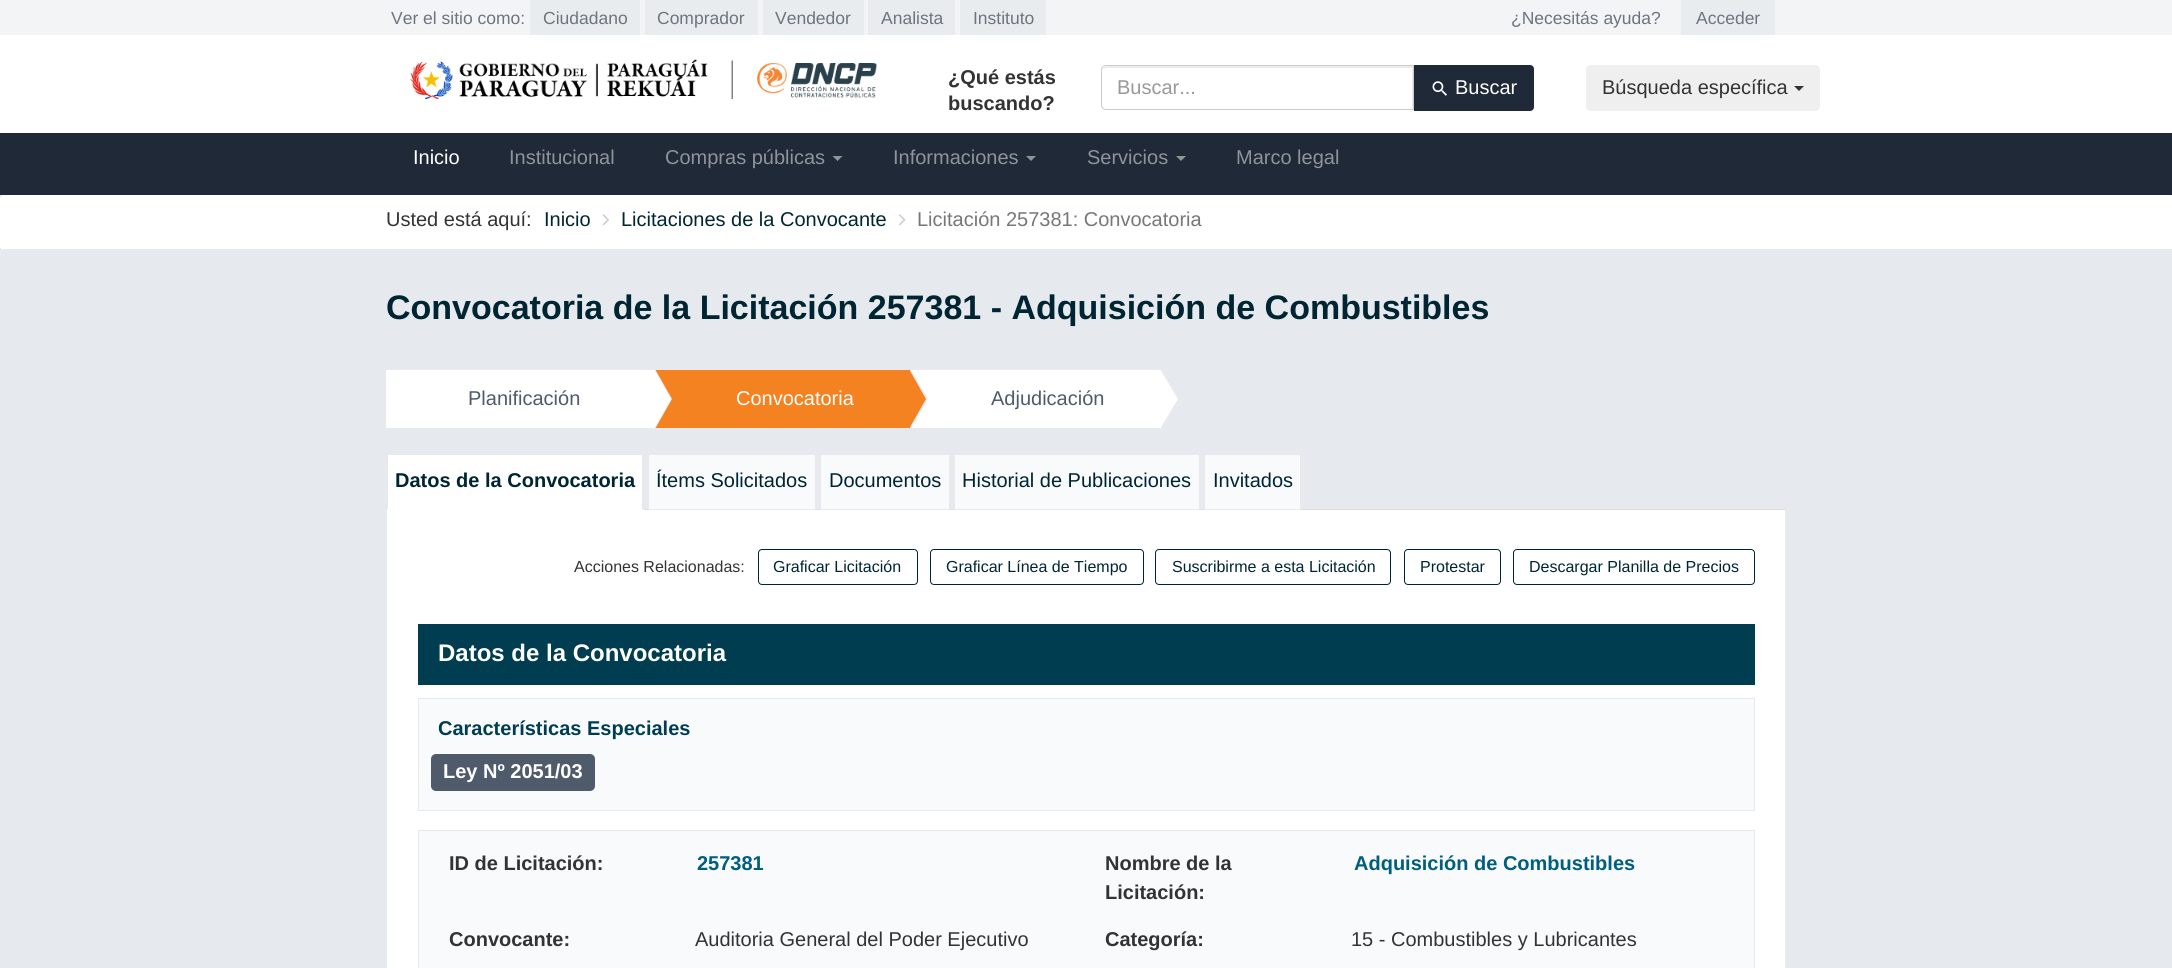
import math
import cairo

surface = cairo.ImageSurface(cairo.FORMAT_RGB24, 2172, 968)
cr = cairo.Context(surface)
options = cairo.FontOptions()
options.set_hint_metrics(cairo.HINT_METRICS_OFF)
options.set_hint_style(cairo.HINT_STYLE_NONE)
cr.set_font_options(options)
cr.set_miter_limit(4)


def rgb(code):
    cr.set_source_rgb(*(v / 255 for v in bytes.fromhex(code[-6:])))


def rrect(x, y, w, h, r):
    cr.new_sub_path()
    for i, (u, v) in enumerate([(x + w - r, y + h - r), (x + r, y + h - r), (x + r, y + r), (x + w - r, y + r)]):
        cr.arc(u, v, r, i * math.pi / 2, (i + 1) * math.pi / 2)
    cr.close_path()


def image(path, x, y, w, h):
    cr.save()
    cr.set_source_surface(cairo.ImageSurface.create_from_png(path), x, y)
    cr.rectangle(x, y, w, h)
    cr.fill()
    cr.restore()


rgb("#ffffff")
cr.paint()
for x, y, w, h, color in [
    (0, 0, 2172, 35, "#f3f4f6"),
    (530, 0, 110, 35, "#e9ecef"),
    (645, 0, 113, 35, "#e9ecef"),
    (763, 0, 101, 35, "#e9ecef"),
    (868, 0, 87, 35, "#e9ecef"),
    (960, 0, 86, 35, "#e9ecef"),
    (1681, 0, 94, 35, "#e9ecef"),
]:
    rgb(color)
    cr.rectangle(x, y, w, h)
    cr.fill()
image("img/1.png", 410, 59, 467, 41)
rgb("#ececec")
cr.new_path()
cr.move_to(1106, 68)
cr.line_to(1412, 68)
cr.line_to(1412, 109)
cr.line_to(1413, 109)
cr.line_to(1413, 66)
cr.line_to(1107, 66)
cr.curve_to(1105, 66, 1104, 67, 1103, 69)
cr.close_path()
cr.fill()
cr.new_path()
cr.move_to(1106, 65.5)
cr.line_to(1413.5, 65.5)
cr.line_to(1413.5, 109.5)
cr.line_to(1106, 109.5)
cr.curve_to(1103.5, 109.5, 1101.5, 107.5, 1101.5, 105)
cr.line_to(1101.5, 70)
cr.curve_to(1101.5, 67.5, 1103.5, 65.5, 1106, 65.5)
cr.close_path()
rgb("#cccccc")
cr.set_line_width(1)
cr.stroke()
rgb("#1f2937")
cr.new_path()
cr.move_to(1414.5, 65.5)
cr.line_to(1530, 65.5)
cr.curve_to(1532, 65.5, 1533.5, 67, 1533.5, 69)
cr.line_to(1533.5, 107)
cr.curve_to(1533.5, 109, 1532, 110.5, 1530, 110.5)
cr.line_to(1414.5, 110.5)
cr.close_path()
cr.fill_preserve()
cr.stroke()
image("img/2.png", 1432, 81, 15, 15)
rgb("#efefef")
rrect(1586, 65, 234, 46, 5)
cr.fill()
rgb("#333333")
cr.new_path()
cr.move_to(1794, 86)
cr.line_to(1804, 86)
cr.line_to(1799, 91)
cr.close_path()
cr.fill()
rgb("#1f2937")
cr.rectangle(0, 133, 2172, 62)
cr.fill()
rgb("#8f949b")
cr.new_path()
cr.move_to(832.5, 156)
cr.line_to(842.5, 156)
cr.line_to(837.5, 161)
cr.close_path()
cr.fill()
cr.new_path()
cr.move_to(1026, 156)
cr.line_to(1036, 156)
cr.line_to(1031, 161)
cr.close_path()
cr.fill()
cr.new_path()
cr.move_to(1176, 156)
cr.line_to(1186, 156)
cr.line_to(1181, 161)
cr.close_path()
cr.fill()
rgb("#e6e9ed")
cr.rectangle(0, 195, 2172, 773)
cr.fill()
rgb("#ffffff")
rrect(0, 195, 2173, 55, 4)
cr.fill()
rgb("#e6e9ed")
cr.rectangle(3, 249, 2168, 1)
cr.fill()
image("img/3.png", 602, 214, 7, 12)
image("img/4.png", 899, 214, 7, 12)
rgb("#ffffff")
cr.rectangle(386, 370, 269, 58)
cr.fill()
rgb("#f58220")
cr.rectangle(655, 370, 255, 58)
cr.fill()
rgb("#e7e9ed")
cr.new_path()
cr.move_to(655, 429)
cr.line_to(655, 369)
cr.line_to(672, 399)
cr.close_path()
cr.fill()
rgb("#ffffff")
cr.new_path()
cr.move_to(654, 429)
cr.line_to(654, 369)
cr.line_to(671, 399)
cr.close_path()
cr.fill()
cr.rectangle(910, 370, 251, 58)
cr.fill()
rgb("#e7e9ed")
cr.new_path()
cr.move_to(910, 429)
cr.line_to(910, 369)
cr.line_to(928, 399)
cr.close_path()
cr.fill()
rgb("#f58220")
cr.new_path()
cr.move_to(909, 429)
cr.line_to(909, 369)
cr.line_to(926, 399)
cr.close_path()
cr.fill()
rgb("#ffffff")
cr.new_path()
cr.move_to(1160, 429)
cr.line_to(1160, 369)
cr.line_to(1178, 399)
cr.close_path()
cr.fill()
rgb("#dddddd")
cr.rectangle(644, 509, 1142, 1)
cr.fill()
rgb("#ffffff")
cr.rectangle(386, 455, 258, 55)
cr.fill()
rgb("#e7e9ed")
cr.new_path()
cr.move_to(644, 454)
cr.line_to(644, 510)
cr.line_to(642, 509)
cr.line_to(642, 455)
cr.close_path()
cr.fill()
cr.new_path()
cr.move_to(386, 510)
cr.line_to(386, 454)
cr.line_to(388, 455)
cr.line_to(388, 509)
cr.close_path()
cr.fill()
rgb("#f8fafc")
cr.rectangle(648.5, 454.5, 167, 55)
cr.fill_preserve()
rgb("#e7e9ed")
cr.stroke()
rgb("#f8fafc")
cr.rectangle(820.5, 454.5, 129, 55)
cr.fill_preserve()
rgb("#e7e9ed")
cr.stroke()
rgb("#f8fafc")
cr.rectangle(954.5, 454.5, 245, 55)
cr.fill_preserve()
rgb("#e7e9ed")
cr.stroke()
rgb("#f8fafc")
cr.rectangle(1204.5, 454.5, 96, 55)
cr.fill_preserve()
rgb("#e7e9ed")
cr.stroke()
rgb("#ffffff")
cr.rectangle(387, 510, 1398, 458)
cr.fill()
rrect(758.5, 549.5, 159, 35, 3.5)
rgb("#002532")
cr.stroke()
rrect(930.5, 549.5, 213, 35, 3.5)
cr.stroke()
rrect(1155.5, 549.5, 235, 35, 3.5)
cr.stroke()
rrect(1404.5, 549.5, 96, 35, 3.5)
cr.stroke()
rrect(1513.5, 549.5, 241, 35, 3.5)
cr.stroke()
rgb("#003d51")
cr.rectangle(418, 624, 1337, 61)
cr.fill()
rgb("#f8fafc")
cr.rectangle(418.5, 698.5, 1336, 112)
cr.fill_preserve()
rgb("#e6e9ed")
cr.stroke()
rgb("#4f5b6b")
rrect(431, 754, 164, 37, 5)
cr.fill()
rgb("#f8fafc")
cr.rectangle(418.5, 830.5, 1336, 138)
cr.fill_preserve()
rgb("#e6e9ed")
cr.stroke()
cr.select_font_face("Liberation Sans")
cr.set_font_size(17.5)
rgb("#6c757d")
for x, y, s in [
    (391, 24, "Ver el sitio como:"),
    (543, 24, "Ciudadano"),
    (657, 24, "Comprador"),
    (775, 24, "Vendedor"),
    (881, 24, "Analista"),
    (973, 24, "Instituto"),
    (1511, 24, "¿Necesitás ayuda?"),
    (1696, 24, "Acceder"),
]:
    cr.move_to(x, y)
    cr.show_text(s)
cr.select_font_face("Liberation Sans", cairo.FONT_SLANT_NORMAL, cairo.FONT_WEIGHT_BOLD)
cr.set_font_size(20)
rgb("#333333")
cr.move_to(948, 84)
cr.show_text("¿Qué estás")
cr.move_to(948, 110)
cr.show_text("buscando?")
cr.select_font_face("Liberation Sans")
rgb("#999999")
cr.move_to(1117, 94)
cr.show_text("Buscar...")
rgb("#ffffff")
cr.move_to(1455, 94)
cr.show_text("Buscar")
rgb("#333333")
cr.move_to(1602, 94)
cr.show_text("Búsqueda específica")
rgb("#ffffff")
cr.move_to(413, 164)
cr.show_text("Inicio")
rgb("#8f949b")
for x, y, s in [
    (509, 164, "Institucional"),
    (665, 164, "Compras públicas"),
    (893, 164, "Informaciones"),
    (1087, 164, "Servicios"),
    (1236, 164, "Marco legal"),
]:
    cr.move_to(x, y)
    cr.show_text(s)
rgb("#333333")
cr.move_to(386, 226)
cr.show_text("Usted está aquí:")
rgb("#002532")
cr.move_to(544, 226)
cr.show_text("Inicio")
cr.move_to(621, 226)
cr.show_text("Licitaciones de la Convocante")
rgb("#777777")
cr.move_to(917, 226)
cr.show_text("Licitación 257381: Convocatoria")
cr.select_font_face("Liberation Sans", cairo.FONT_SLANT_NORMAL, cairo.FONT_WEIGHT_BOLD)
cr.set_font_size(34)
rgb("#002532")
cr.move_to(386, 319)
cr.show_text("Convocatoria de la Licitación 257381 - Adquisición de Combustibles")
cr.select_font_face("Liberation Sans")
cr.set_font_size(20)
rgb("#4f5b6b")
cr.move_to(468, 405)
cr.show_text("Planificación")
rgb("#ffffff")
cr.move_to(736, 405)
cr.show_text("Convocatoria")
rgb("#4f5b6b")
cr.move_to(991, 405)
cr.show_text("Adjudicación")
cr.select_font_face("Liberation Sans", cairo.FONT_SLANT_NORMAL, cairo.FONT_WEIGHT_BOLD)
rgb("#002532")
cr.move_to(395, 487)
cr.show_text("Datos de la Convocatoria")
cr.select_font_face("Liberation Sans")
for x, y, s in [
    (656, 487, "Ítems Solicitados"),
    (829, 487, "Documentos"),
    (962, 487, "Historial de Publicaciones"),
    (1213, 487, "Invitados"),
]:
    cr.move_to(x, y)
    cr.show_text(s)
cr.set_font_size(16)
rgb("#333333")
cr.move_to(574, 572)
cr.show_text("Acciones Relacionadas:")
rgb("#002532")
for x, y, s in [
    (773, 572, "Graficar Licitación"),
    (946, 572, "Graficar Línea de Tiempo"),
    (1172, 572, "Suscribirme a esta Licitación"),
    (1420, 572, "Protestar"),
    (1529, 572, "Descargar Planilla de Precios"),
]:
    cr.move_to(x, y)
    cr.show_text(s)
cr.select_font_face("Liberation Sans", cairo.FONT_SLANT_NORMAL, cairo.FONT_WEIGHT_BOLD)
cr.set_font_size(24)
rgb("#ffffff")
cr.move_to(438, 661)
cr.show_text("Datos de la Convocatoria")
cr.set_font_size(20)
rgb("#003d51")
cr.move_to(438, 735)
cr.show_text("Características Especiales")
rgb("#ffffff")
cr.move_to(443, 778)
cr.show_text("Ley Nº 2051/03")
rgb("#333333")
cr.move_to(449, 870)
cr.show_text("ID de Licitación:")
rgb("#005e7f")
cr.move_to(697, 870)
cr.show_text("257381")
rgb("#333333")
cr.move_to(1105, 870)
cr.show_text("Nombre de la")
cr.move_to(1105, 899)
cr.show_text("Licitación:")
rgb("#005e7f")
cr.move_to(1354, 870)
cr.show_text("Adquisición de Combustibles")
rgb("#333333")
cr.move_to(449, 946)
cr.show_text("Convocante:")
cr.select_font_face("Liberation Sans")
cr.move_to(695, 946)
cr.show_text("Auditoria General del Poder Ejecutivo")
cr.select_font_face("Liberation Sans", cairo.FONT_SLANT_NORMAL, cairo.FONT_WEIGHT_BOLD)
cr.move_to(1105, 946)
cr.show_text("Categoría:")
cr.select_font_face("Liberation Sans")
cr.move_to(1351, 946)
cr.show_text("15 - Combustibles y Lubricantes")
surface.write_to_png("page.png")
